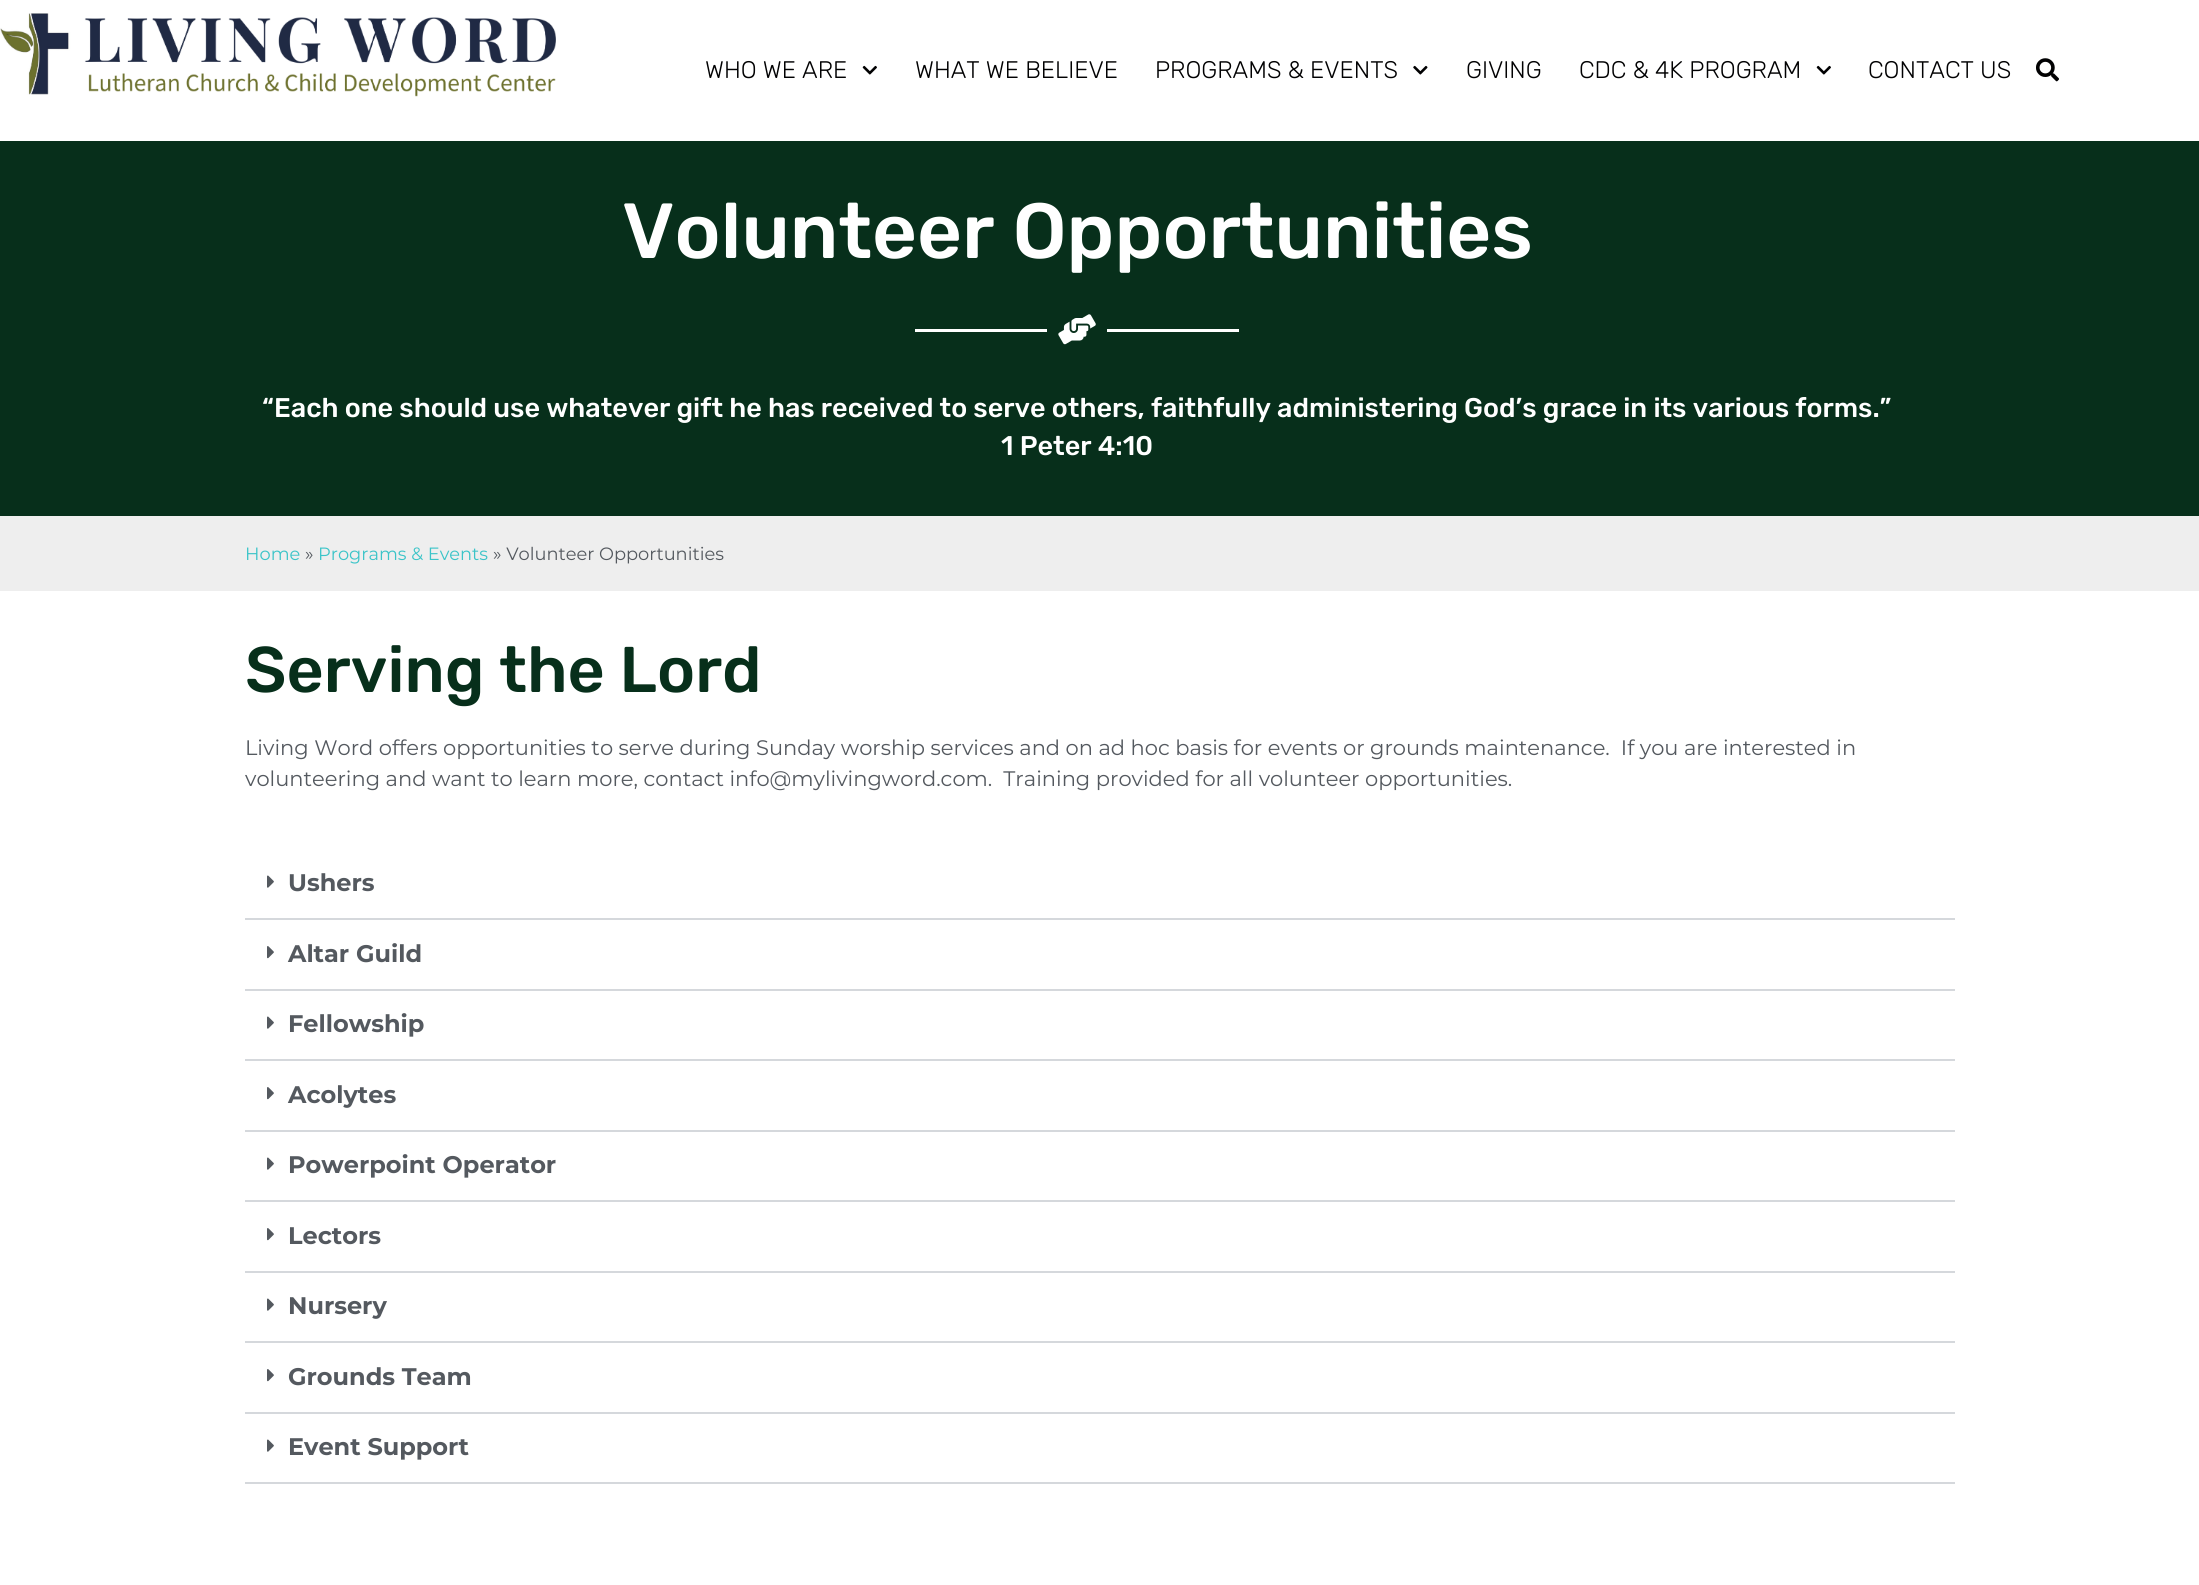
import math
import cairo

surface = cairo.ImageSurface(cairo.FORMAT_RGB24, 2199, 1585)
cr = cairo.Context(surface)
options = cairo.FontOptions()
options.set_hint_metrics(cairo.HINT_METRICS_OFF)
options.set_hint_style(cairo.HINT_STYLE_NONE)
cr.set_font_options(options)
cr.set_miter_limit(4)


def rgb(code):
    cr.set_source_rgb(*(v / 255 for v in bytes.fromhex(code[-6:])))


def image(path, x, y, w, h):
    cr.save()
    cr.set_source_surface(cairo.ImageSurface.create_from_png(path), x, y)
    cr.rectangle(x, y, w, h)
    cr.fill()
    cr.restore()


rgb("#ffffff")
cr.paint()
image("img/1.png", 0, 13, 556, 84)
image("img/2.png", 862, 65, 15, 10)
image("img/3.png", 1413, 65, 15, 10)
image("img/2.png", 1816, 65, 15, 10)
image("img/4.png", 2036, 58, 23, 24)
rgb("#072f1b")
cr.rectangle(0, 141, 2199, 375)
cr.fill()
rgb("#ffffff")
cr.rectangle(915, 329, 132, 3)
cr.fill()
image("img/5.png", 1058, 314, 38, 31)
for x, y, w, h, color in [
    (1107, 329, 132, 3, "#ffffff"),
    (0, 516, 2199, 75, "#eeeeee"),
    (245, 918, 1710, 2, "#d5d8dc"),
]:
    rgb(color)
    cr.rectangle(x, y, w, h)
    cr.fill()
image("img/6.png", 267, 875, 7, 13)
cr.rectangle(245, 989, 1710, 2)
cr.fill()
image("img/7.png", 267, 946, 7, 13)
cr.rectangle(245, 1059, 1710, 2)
cr.fill()
image("img/6.png", 267, 1016, 7, 13)
cr.rectangle(245, 1130, 1710, 2)
cr.fill()
image("img/7.png", 267, 1087, 7, 13)
cr.rectangle(245, 1200, 1710, 2)
cr.fill()
image("img/6.png", 267, 1157, 7, 13)
cr.rectangle(245, 1271, 1710, 2)
cr.fill()
image("img/7.png", 267, 1228, 7, 13)
cr.rectangle(245, 1341, 1710, 2)
cr.fill()
image("img/6.png", 267, 1298, 7, 13)
cr.rectangle(245, 1412, 1710, 2)
cr.fill()
image("img/7.png", 267, 1369, 7, 13)
cr.rectangle(245, 1482, 1710, 2)
cr.fill()
image("img/6.png", 267, 1439, 7, 13)
cr.select_font_face("Rubik Light")
cr.set_font_size(24)
rgb("#010102")
for x, y, s in [
    (705, 78, "WHO WE ARE"),
    (915, 78, "WHAT WE BELIEVE"),
    (1155, 78, "PROGRAMS & EVENTS"),
    (1466, 78, "GIVING"),
    (1579, 78, "CDC & 4K PROGRAM"),
    (1868, 78, "CONTACT US"),
]:
    cr.move_to(x, y)
    cr.show_text(s)
cr.select_font_face("Rubik Medium")
cr.set_font_size(78)
rgb("#ffffff")
cr.move_to(622, 258)
cr.show_text("Volunteer Opportunities")
cr.set_font_size(27)
cr.move_to(262, 417)
cr.show_text("“Each one should use whatever gift he has received to serve others, faithfully administering God’s grace in its various forms.”")
cr.move_to(1001, 455)
cr.show_text("1 Peter 4:10")
cr.select_font_face("Montserrat")
cr.set_font_size(17.8)
rgb("#3bc4c8")
cr.move_to(245, 560)
cr.show_text("Home")
rgb("#54595f")
cr.move_to(305, 560)
cr.show_text("»")
rgb("#3bc4c8")
cr.move_to(318, 560)
cr.show_text("Programs & Events")
rgb("#54595f")
cr.move_to(493, 560)
cr.show_text("» Volunteer Opportunities")
cr.select_font_face("Rubik Medium")
cr.set_font_size(64.5)
rgb("#072f1b")
cr.move_to(245, 692)
cr.show_text("Serving the Lord")
cr.select_font_face("Montserrat")
cr.set_font_size(21)
rgb("#54595f")
cr.move_to(245, 755)
cr.show_text("Living Word offers opportunities to serve during Sunday worship services and on ad hoc basis for events or grounds maintenance.  If you are interested in")
cr.move_to(245, 786)
cr.show_text("volunteering and want to learn more, contact info@mylivingword.com.  Training provided for all volunteer opportunities.")
cr.select_font_face("Montserrat", cairo.FONT_SLANT_NORMAL, cairo.FONT_WEIGHT_BOLD)
cr.set_font_size(24)
for x, y, s in [
    (288, 891, "Ushers"),
    (288, 962, "Altar Guild"),
    (288, 1032, "Fellowship"),
    (288, 1103, "Acolytes"),
    (288, 1173, "Powerpoint Operator"),
    (288, 1244, "Lectors"),
    (288, 1314, "Nursery"),
    (288, 1385, "Grounds Team"),
    (288, 1455, "Event Support"),
]:
    cr.move_to(x, y)
    cr.show_text(s)
surface.write_to_png("page.png")
